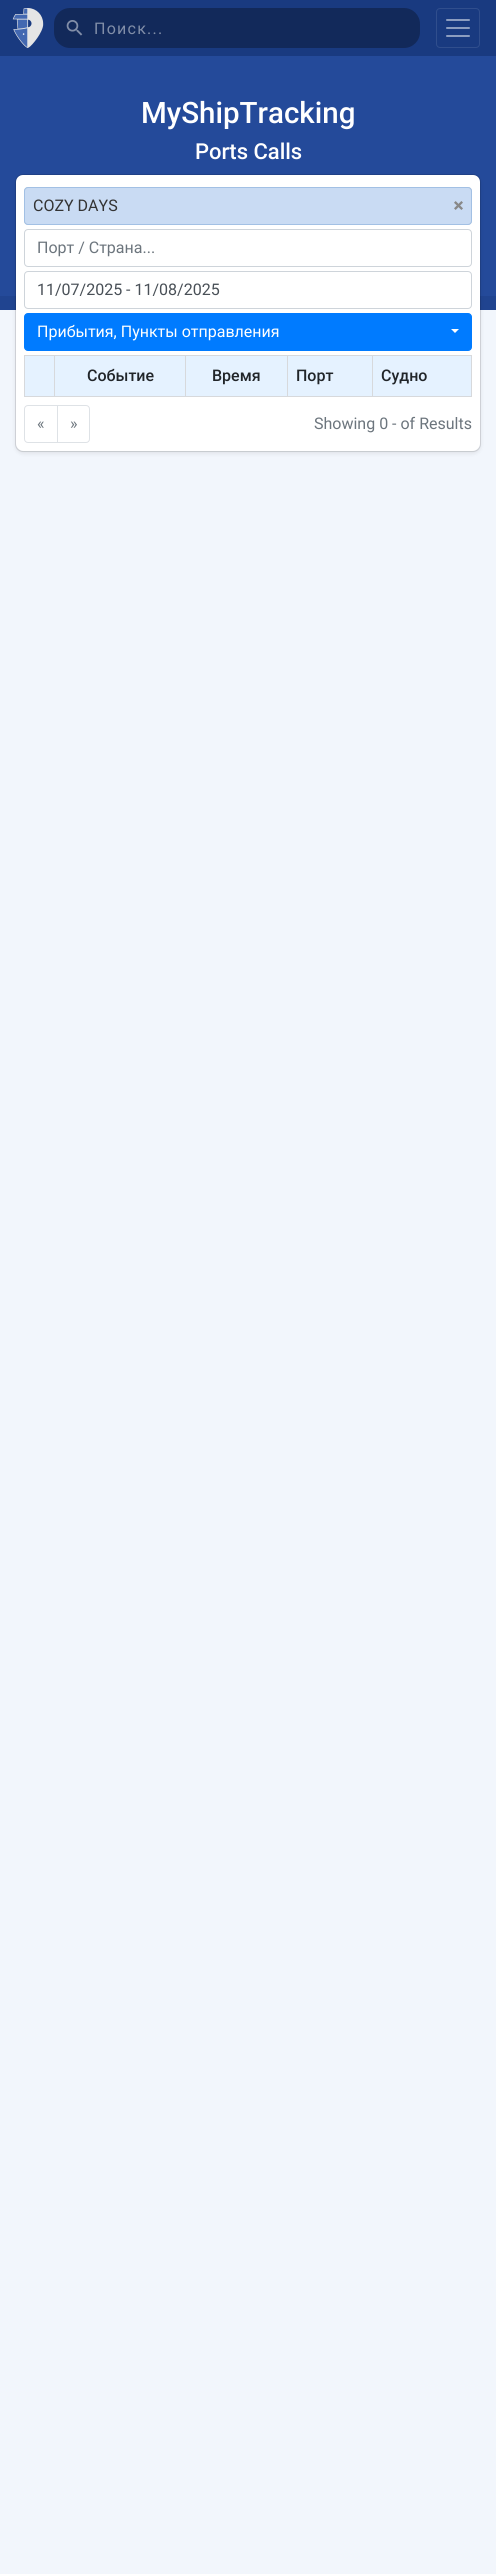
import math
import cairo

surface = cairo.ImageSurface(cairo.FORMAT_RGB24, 496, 2574)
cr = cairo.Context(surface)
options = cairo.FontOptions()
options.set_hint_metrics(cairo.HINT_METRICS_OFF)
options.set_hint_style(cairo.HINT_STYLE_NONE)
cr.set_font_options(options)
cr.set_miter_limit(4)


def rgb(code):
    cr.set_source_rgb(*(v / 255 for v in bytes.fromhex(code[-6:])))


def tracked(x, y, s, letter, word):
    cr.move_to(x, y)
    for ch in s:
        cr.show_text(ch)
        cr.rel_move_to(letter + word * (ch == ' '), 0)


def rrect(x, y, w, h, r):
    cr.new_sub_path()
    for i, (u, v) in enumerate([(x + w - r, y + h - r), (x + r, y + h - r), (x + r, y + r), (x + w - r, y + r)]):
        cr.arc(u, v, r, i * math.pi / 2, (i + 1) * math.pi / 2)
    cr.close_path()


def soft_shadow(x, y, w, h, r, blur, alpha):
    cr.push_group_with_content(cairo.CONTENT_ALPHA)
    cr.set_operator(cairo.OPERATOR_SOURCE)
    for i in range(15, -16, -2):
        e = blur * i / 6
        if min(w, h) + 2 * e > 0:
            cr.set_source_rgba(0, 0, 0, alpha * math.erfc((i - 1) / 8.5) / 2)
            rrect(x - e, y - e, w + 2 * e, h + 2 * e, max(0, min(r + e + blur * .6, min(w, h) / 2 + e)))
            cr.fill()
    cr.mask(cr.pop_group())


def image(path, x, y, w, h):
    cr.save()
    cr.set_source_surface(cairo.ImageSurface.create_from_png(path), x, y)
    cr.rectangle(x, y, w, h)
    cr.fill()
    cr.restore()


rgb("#f2f6fc")
cr.paint()
rgb("#193a80")
cr.rectangle(0, 0, 496, 56)
cr.fill()
image("img/1.png", 12, 8, 32, 40)
rgb("#12295a")
rrect(54, 8, 366, 40, 16)
cr.fill()
image("img/2.png", 66, 20, 17, 16)
rrect(436.5, 8.5, 43, 39, 3.5)
rgb("#304e8d")
cr.set_line_width(1)
cr.stroke()
image("img/3.png", 446, 19, 24, 18)
rgb("#244a9a")
cr.rectangle(0, 56, 496, 240)
cr.fill()
rgb("#204490")
cr.rectangle(0, 296, 496, 14)
cr.fill()
rgb("#000000")
soft_shadow(15, 176, 466, 278, 8, 2, 0.07)
rrect(15.5, 174.5, 465, 277, 7.5)
cr.set_source_rgba(0, 0, 0, 0.12)
cr.stroke()
cr.save()
rrect(16, 175, 464, 276, 7)
cr.clip()
rgb("#ffffff")
cr.new_path()
cr.move_to(23, 175)
cr.line_to(473, 175)
cr.curve_to(477, 175, 480, 178, 480, 182)
cr.line_to(480, 443)
cr.curve_to(480, 447.5, 476.5, 451, 472, 451)
cr.line_to(24, 451)
cr.curve_to(19.5, 451, 16, 447.5, 16, 443)
cr.line_to(16, 182)
cr.curve_to(16, 178, 19, 175, 23, 175)
cr.close_path()
cr.fill()
cr.restore()
rrect(24.5, 187.5, 447, 37, 3.5)
rgb("#ced4da")
cr.stroke()
rgb("#c9dbf3")
rrect(24.5, 187.5, 447, 37, 3.5)
cr.fill_preserve()
rgb("#a2c0e4")
cr.stroke()
image("img/4.png", 454, 201, 9, 9)
rrect(24.5, 229.5, 447, 37, 3.5)
rgb("#ced4da")
cr.stroke()
rrect(24.5, 271.5, 447, 37, 3.5)
cr.stroke()
rgb("#007bff")
rrect(24.5, 313.5, 447, 37, 3.5)
cr.fill_preserve()
cr.stroke()
rgb("#ffffff")
cr.new_path()
cr.move_to(451, 329)
cr.line_to(459, 329)
cr.line_to(455, 333)
cr.close_path()
cr.fill()
for x, y, w, h, color in [
    (25, 356, 29, 40, "#e5f2ff"),
    (372, 355, 100, 1, "#d7d9dc"),
    (471, 355, 1, 42, "#d7d9dc"),
    (372, 396, 100, 1, "#d7d9dc"),
    (372, 355, 1, 42, "#d7d9dc"),
    (287, 355, 86, 1, "#d7d9dc"),
    (287, 396, 86, 1, "#d7d9dc"),
    (287, 355, 1, 42, "#d7d9dc"),
    (185, 355, 103, 1, "#d7d9dc"),
    (185, 396, 103, 1, "#d7d9dc"),
    (185, 355, 1, 42, "#d7d9dc"),
    (54, 355, 132, 1, "#d7d9dc"),
    (54, 396, 132, 1, "#d7d9dc"),
    (54, 355, 1, 42, "#d7d9dc"),
    (24, 355, 31, 1, "#d7d9dc"),
    (24, 396, 31, 1, "#d7d9dc"),
    (24, 355, 1, 42, "#d7d9dc"),
    (55, 356, 130, 40, "#e5f2ff"),
    (186, 356, 101, 40, "#e5f2ff"),
    (288, 356, 84, 40, "#e5f2ff"),
    (373, 356, 98, 40, "#e5f2ff"),
]:
    rgb(color)
    cr.rectangle(x, y, w, h)
    cr.fill()
cr.new_path()
cr.move_to(28, 405.5)
cr.line_to(57.5, 405.5)
cr.line_to(57.5, 442.5)
cr.line_to(28, 442.5)
cr.curve_to(26, 442.5, 24.5, 441, 24.5, 439)
cr.line_to(24.5, 409)
cr.curve_to(24.5, 407, 26, 405.5, 28, 405.5)
cr.close_path()
rgb("#dee2e6")
cr.stroke()
rgb("#ffffff")
cr.new_path()
cr.move_to(57.5, 405.5)
cr.line_to(86, 405.5)
cr.curve_to(88, 405.5, 89.5, 407, 89.5, 409)
cr.line_to(89.5, 439)
cr.curve_to(89.5, 441, 88, 442.5, 86, 442.5)
cr.line_to(57.5, 442.5)
cr.close_path()
cr.fill_preserve()
rgb("#dee2e6")
cr.stroke()
cr.select_font_face("Roboto")
cr.set_font_size(16)
rgb("#818ea8")
tracked(94, 34, "Поиск...", 1.25, 0)
cr.select_font_face("Roboto Medium")
cr.set_font_size(29.5)
rgb("#ffffff")
cr.move_to(141, 123)
cr.show_text("MyShipTracking")
cr.set_font_size(22)
cr.move_to(195, 159)
cr.show_text("Ports Calls")
cr.select_font_face("Roboto")
cr.set_font_size(16)
rgb("#333333")
cr.move_to(33, 211)
cr.show_text("COZY DAYS")
rgb("#6c757d")
cr.move_to(37, 253)
cr.show_text("Порт / Страна...")
rgb("#495057")
cr.move_to(37, 295)
cr.show_text("11/07/2025 - 11/08/2025")
rgb("#ffffff")
cr.move_to(37, 337)
cr.show_text("Прибытия, Пункты отправления")
cr.select_font_face("Roboto Medium")
rgb("#212529")
for x, y, s in [
    (87, 381, "Событие"),
    (212, 381, "Время"),
    (296, 381, "Порт"),
    (381, 381, "Судно"),
]:
    cr.move_to(x, y)
    cr.show_text(s)
cr.select_font_face("Roboto")
rgb("#6c757d")
for x, y, s in [
    (37, 429, "«"),
    (70, 429, "»"),
    (314, 429, "Showing 0 - of Results"),
]:
    cr.move_to(x, y)
    cr.show_text(s)
surface.write_to_png("page.png")
